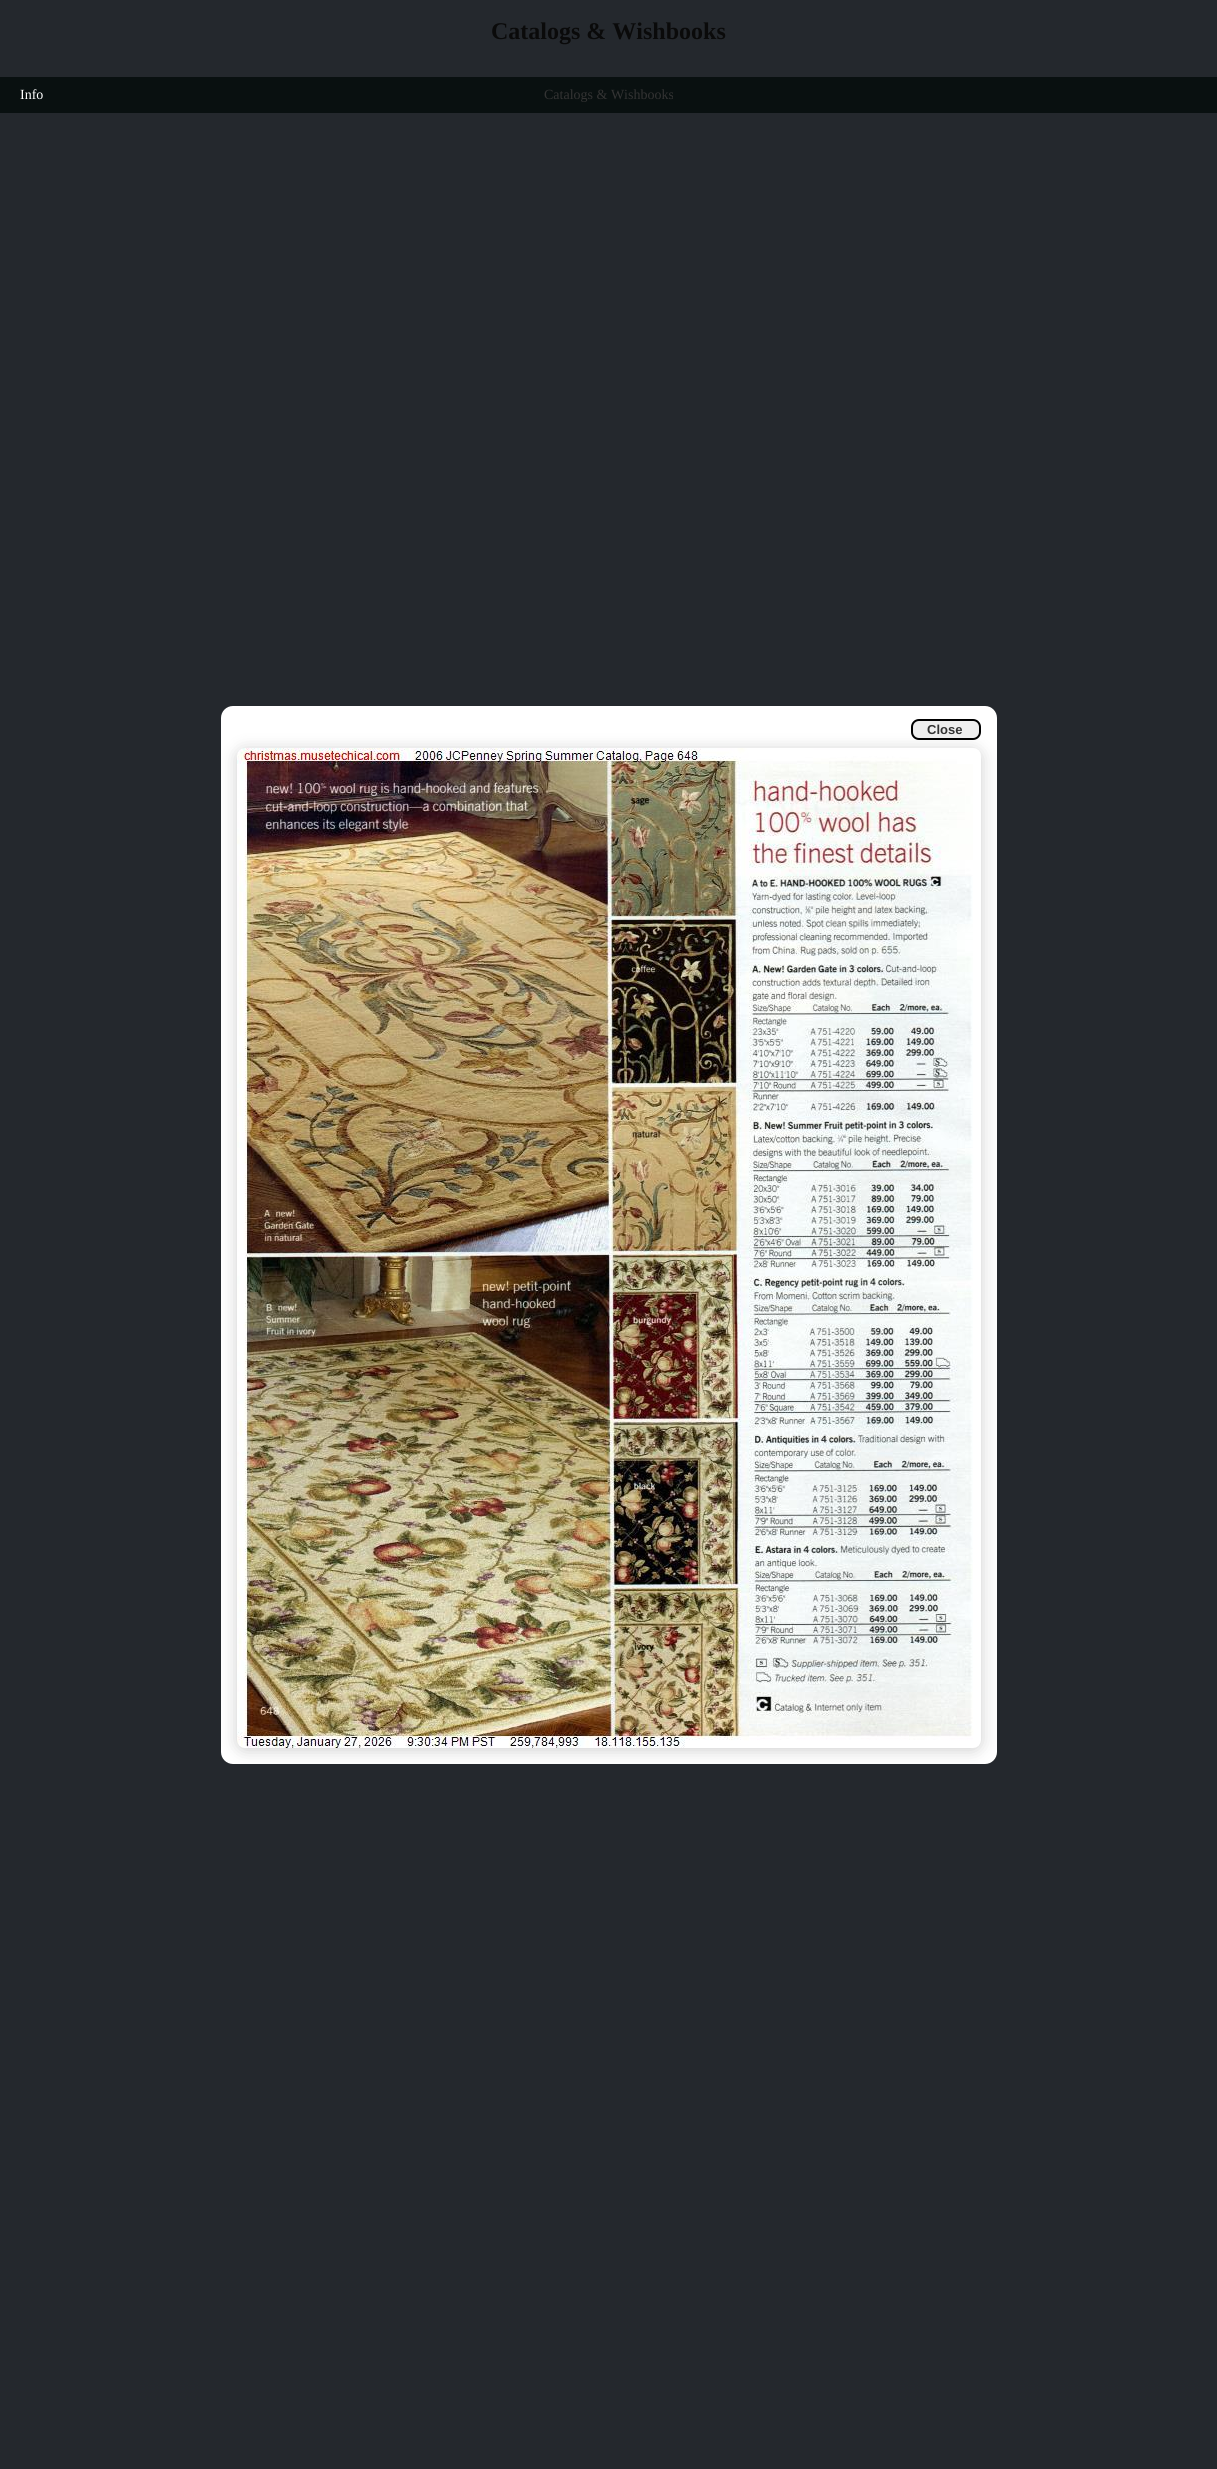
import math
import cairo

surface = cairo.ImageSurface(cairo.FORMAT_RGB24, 1217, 2469)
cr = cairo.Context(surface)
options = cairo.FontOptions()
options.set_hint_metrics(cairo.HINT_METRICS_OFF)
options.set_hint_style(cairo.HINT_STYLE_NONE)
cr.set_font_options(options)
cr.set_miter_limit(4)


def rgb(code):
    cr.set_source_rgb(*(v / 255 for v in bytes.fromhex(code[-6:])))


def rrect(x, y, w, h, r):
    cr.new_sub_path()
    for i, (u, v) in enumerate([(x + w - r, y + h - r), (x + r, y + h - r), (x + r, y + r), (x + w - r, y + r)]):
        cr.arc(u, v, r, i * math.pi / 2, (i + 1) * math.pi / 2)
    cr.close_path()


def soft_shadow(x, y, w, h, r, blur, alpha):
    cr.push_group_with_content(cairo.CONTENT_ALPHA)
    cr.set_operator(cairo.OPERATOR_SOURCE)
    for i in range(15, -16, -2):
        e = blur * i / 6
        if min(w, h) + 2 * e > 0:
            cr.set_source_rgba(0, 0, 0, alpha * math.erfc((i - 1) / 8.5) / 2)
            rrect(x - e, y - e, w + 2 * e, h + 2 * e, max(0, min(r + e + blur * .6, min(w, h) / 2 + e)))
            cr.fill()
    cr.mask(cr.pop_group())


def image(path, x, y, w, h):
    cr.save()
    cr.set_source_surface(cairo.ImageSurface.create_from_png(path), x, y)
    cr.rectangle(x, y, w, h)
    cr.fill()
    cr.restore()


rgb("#24282d")
cr.paint()
rgb("#091010")
cr.rectangle(0, 77, 1217, 36)
cr.fill()
rgb("#ffffff")
rrect(221, 706, 776, 1058, 12)
cr.fill()
rgb("#000000")
soft_shadow(237, 750, 744, 1000, 8, 8, 0.2)
rgb("#eeeeee")
rrect(912, 720, 68, 19, 7)
cr.fill_preserve()
rgb("#000000")
cr.stroke()
image("img/1.png", 237, 748, 744, 1000)
cr.select_font_face("Liberation Serif")
cr.set_font_size(14)
rgb("#ffffff")
cr.move_to(20, 99)
cr.show_text("Info")
rgb("#333333")
cr.move_to(544, 99)
cr.show_text("Catalogs & Wishbooks")
cr.select_font_face("Liberation Serif", cairo.FONT_SLANT_NORMAL, cairo.FONT_WEIGHT_BOLD)
cr.set_font_size(24)
rgb("#0a0a0a")
cr.move_to(491, 39)
cr.show_text("Catalogs & Wishbooks")
cr.select_font_face("Liberation Sans", cairo.FONT_SLANT_NORMAL, cairo.FONT_WEIGHT_BOLD)
cr.set_font_size(13)
rgb("#333333")
cr.move_to(927, 734)
cr.show_text("Close")
surface.write_to_png("page.png")
